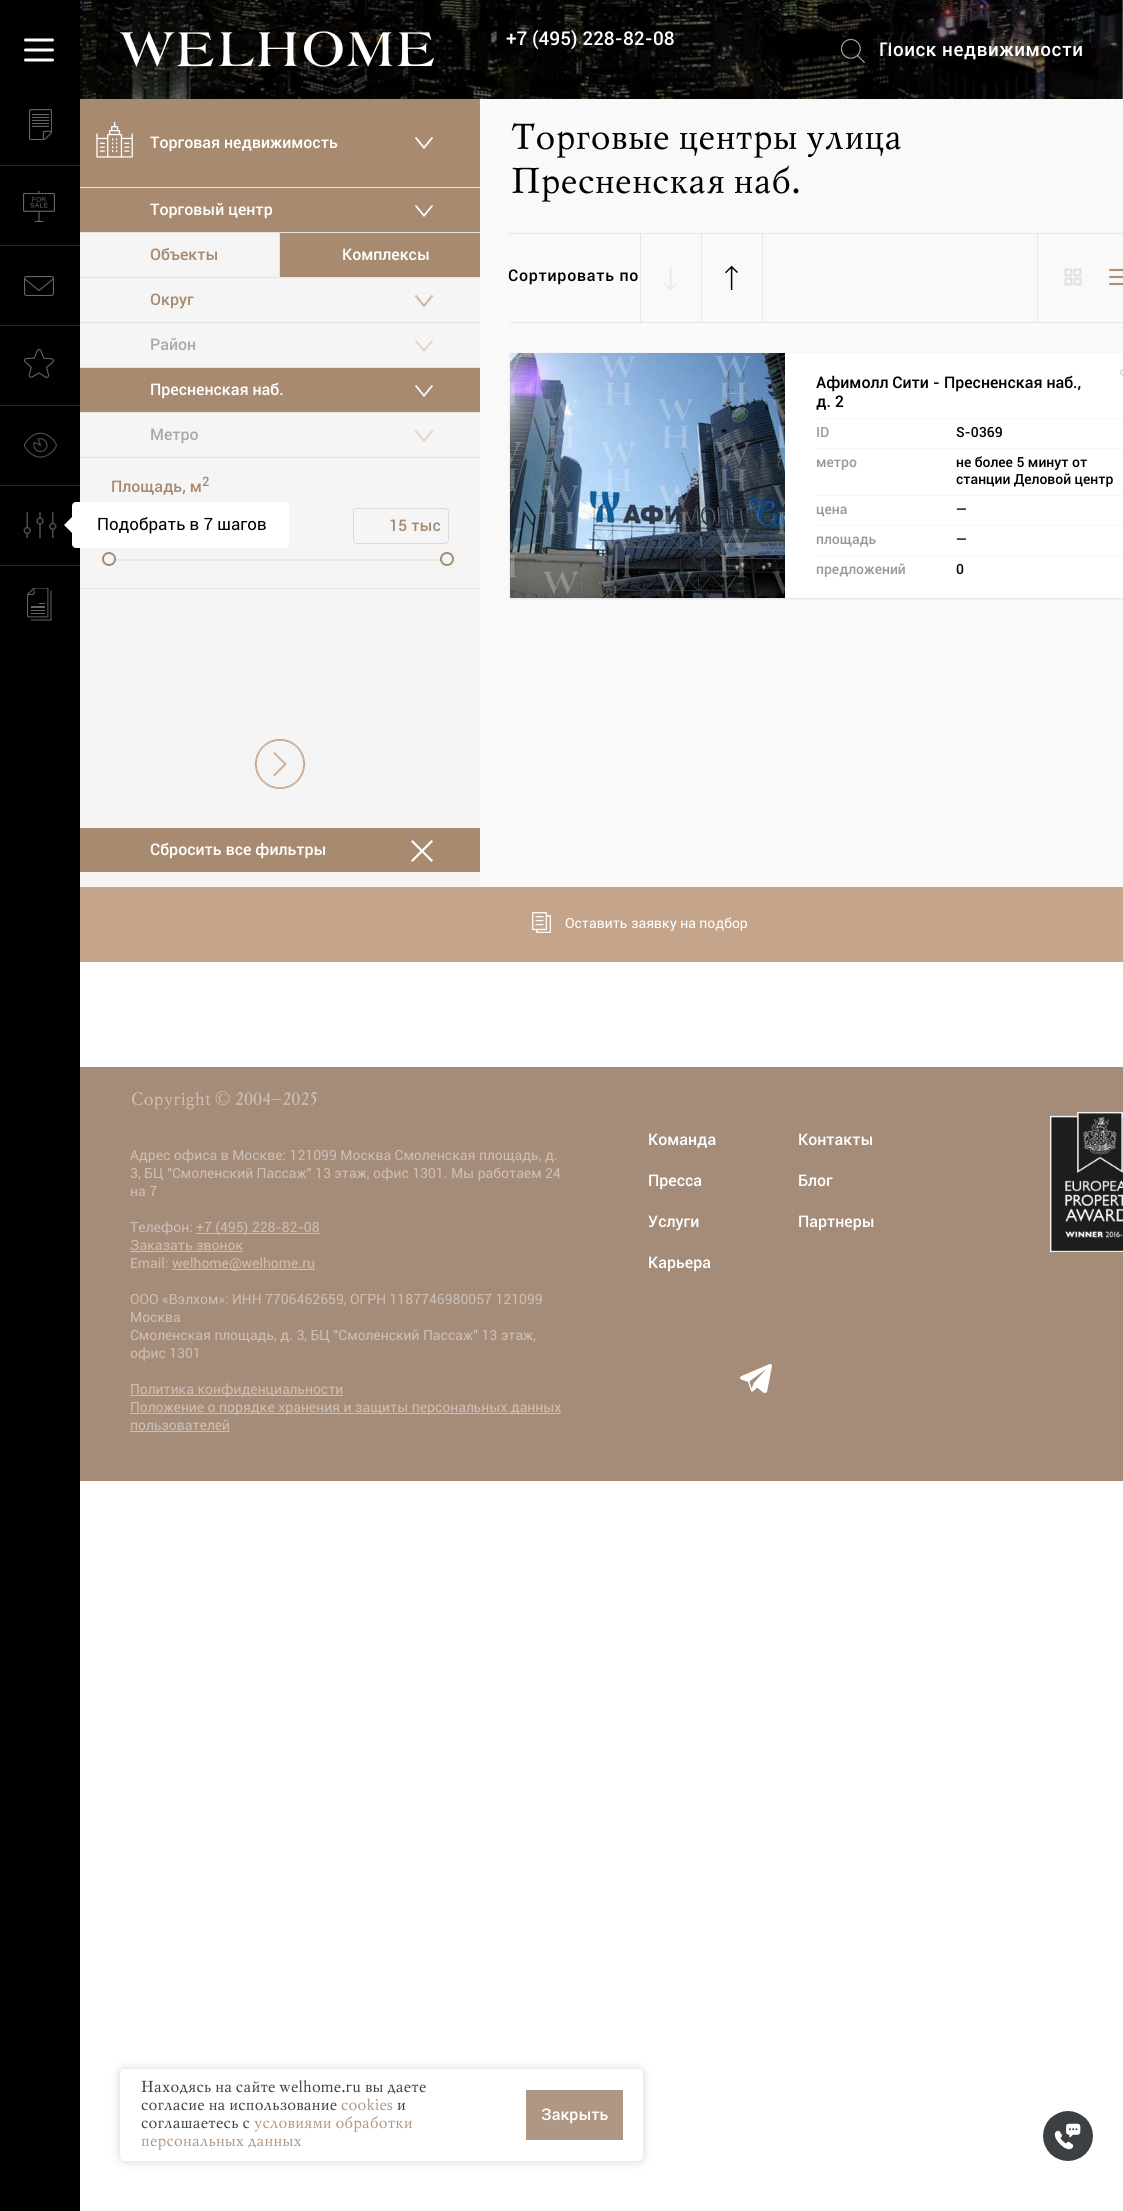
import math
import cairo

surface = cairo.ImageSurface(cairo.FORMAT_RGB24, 1123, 2211)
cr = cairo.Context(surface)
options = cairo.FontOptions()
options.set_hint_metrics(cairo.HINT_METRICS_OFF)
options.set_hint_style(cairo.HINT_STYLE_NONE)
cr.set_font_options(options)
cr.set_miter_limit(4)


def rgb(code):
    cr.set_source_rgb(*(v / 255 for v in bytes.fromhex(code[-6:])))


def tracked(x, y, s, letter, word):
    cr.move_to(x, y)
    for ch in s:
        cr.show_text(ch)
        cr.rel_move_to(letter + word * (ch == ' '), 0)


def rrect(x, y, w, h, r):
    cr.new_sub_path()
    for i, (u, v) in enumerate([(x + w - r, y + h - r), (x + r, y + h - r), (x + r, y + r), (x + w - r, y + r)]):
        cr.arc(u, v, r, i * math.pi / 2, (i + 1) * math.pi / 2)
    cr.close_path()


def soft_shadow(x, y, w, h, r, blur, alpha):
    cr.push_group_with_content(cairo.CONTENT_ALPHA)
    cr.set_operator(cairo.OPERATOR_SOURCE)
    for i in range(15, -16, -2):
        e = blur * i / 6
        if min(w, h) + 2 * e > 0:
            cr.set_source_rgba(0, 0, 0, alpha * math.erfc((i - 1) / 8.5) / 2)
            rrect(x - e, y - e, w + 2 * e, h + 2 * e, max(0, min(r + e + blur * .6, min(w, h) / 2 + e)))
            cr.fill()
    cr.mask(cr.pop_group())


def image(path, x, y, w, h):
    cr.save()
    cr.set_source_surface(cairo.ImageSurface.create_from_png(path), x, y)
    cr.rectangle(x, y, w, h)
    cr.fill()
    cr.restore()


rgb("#ffffff")
cr.paint()
image("img/1.png", 80, 0, 1043, 99)
image("img/2.png", 840, 38, 25, 25)
image("img/3.png", 120, 31, 314, 36)
for x, y, w, h, color in [
    (80, 233, 400, 654, "#f5f5f5"),
    (80, 187, 400, 1, "#e3e3e3"),
    (80, 99, 400, 88, "#a88a71"),
]:
    rgb(color)
    cr.rectangle(x, y, w, h)
    cr.fill()
image("img/4.png", 96, 121, 37, 37)
image("img/6.png", 415, 137, 18, 12)
image("img/5.png", 415, 137, 18, 12)
cr.rectangle(80, 188, 400, 44)
cr.fill()
rgb("#e3e3e3")
cr.rectangle(80, 232, 400, 1)
cr.fill()
image("img/7.png", 415, 205, 18, 12)
for x, y, w, h, color in [
    (279, 233, 1, 45, "#e3e3e3"),
    (80, 277, 400, 1, "#e3e3e3"),
    (280, 233, 200, 44, "#a88a71"),
    (80, 322, 400, 1, "#e3e3e3"),
]:
    rgb(color)
    cr.rectangle(x, y, w, h)
    cr.fill()
image("img/8.png", 415, 295, 18, 12)
cr.rectangle(80, 367, 400, 1)
cr.fill()
image("img/9.png", 415, 340, 18, 12)
rgb("#a88a71")
cr.rectangle(80, 368, 400, 44)
cr.fill()
rgb("#e3e3e3")
cr.rectangle(80, 412, 400, 1)
cr.fill()
image("img/7.png", 415, 385, 18, 12)
cr.rectangle(80, 457, 400, 1)
cr.fill()
image("img/9.png", 415, 430, 18, 12)
cr.rectangle(80, 588, 400, 1)
cr.fill()
rrect(353.5, 508.5, 95, 35, 3.5)
rgb("#e2d6cf")
cr.set_line_width(1)
cr.stroke()
rgb("#e6e6e6")
cr.rectangle(111, 559, 338, 2)
cr.fill()
rgb("#f5f5f5")
cr.rectangle(111, 559, 4, 2)
cr.fill()
rgb("#a88a71")
cr.arc(109, 559, 7, 0, 2 * math.pi)
cr.fill()
rgb("#f5f5f5")
cr.arc(109, 559, 5, 0, 2 * math.pi)
cr.fill()
cr.rectangle(441, 559, 8, 2)
cr.fill()
rgb("#a88a71")
cr.arc(447, 559, 7, 0, 2 * math.pi)
cr.fill()
rgb("#f5f5f5")
cr.arc(447, 559, 5, 0, 2 * math.pi)
cr.fill()
image("img/10.png", 254, 738, 52, 52)
rgb("#a88a71")
cr.rectangle(80, 828, 400, 44)
cr.fill()
image("img/11.png", 411, 840, 22, 22)
for x, y, w, h, color in [
    (480, 99, 643, 788, "#f9f9f9"),
    (509, 233, 614, 1, "#e6e6e6"),
    (510, 322, 613, 1, "#e6e6e6"),
]:
    rgb(color)
    cr.rectangle(x, y, w, h)
    cr.fill()
image("img/12.png", 664, 266, 13, 24)
cr.rectangle(701, 234, 1, 88)
cr.fill()
cr.rectangle(640, 234, 1, 88)
cr.fill()
image("img/13.png", 725, 266, 13, 24)
cr.rectangle(762, 234, 1, 88)
cr.fill()
cr.rectangle(1037, 234, 1, 88)
cr.fill()
image("img/14.png", 1064, 268, 18, 18)
image("img/15.png", 1109, 268, 14, 18)
rgb("#000000")
soft_shadow(510, 354, 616, 245, 0, 1, 0.1)
rgb("#ffffff")
cr.rectangle(785, 353, 338, 245)
cr.fill()
image("img/16.png", 510, 353, 275, 245)
image("img/17.png", 1120, 369, 3, 7)
for x, y, w, h, color in [
    (816, 418, 307, 1, "#f7f7f7"),
    (816, 448, 307, 1, "#f7f7f7"),
    (816, 495, 307, 1, "#f7f7f7"),
    (816, 525, 307, 1, "#f7f7f7"),
    (816, 555, 307, 1, "#f7f7f7"),
    (80, 887, 1043, 75, "#c4a48b"),
]:
    rgb(color)
    cr.rectangle(x, y, w, h)
    cr.fill()
image("img/18.png", 532, 912, 19, 21)
for x, y, w, h, color in [
    (80, 1067, 1043, 414, "#a58c79"),
    (196, 1233, 124, 1, "#ccbfb6"),
    (130, 1251, 113, 1, "#ccbfb6"),
    (172, 1269, 143, 1, "#ccbfb6"),
    (130, 1395, 213, 1, "#ccbfb6"),
    (130, 1413, 431, 1, "#ccbfb6"),
    (130, 1431, 100, 1, "#ccbfb6"),
]:
    rgb(color)
    cr.rectangle(x, y, w, h)
    cr.fill()
image("img/19.png", 740, 1364, 32, 29)
image("img/20.png", 1050, 1112, 73, 140)
rgb("#000000")
cr.rectangle(0, 0, 80, 2211)
cr.fill()
image("img/21.png", 23, 38, 32, 24)
image("img/22.png", 29, 109, 23, 31)
rgb("#262626")
cr.rectangle(0, 165, 80, 1)
cr.fill()
image("img/23.png", 23, 191, 32, 31)
cr.rectangle(0, 245, 80, 1)
cr.fill()
image("img/24.png", 24, 276, 30, 20)
cr.rectangle(0, 325, 80, 1)
cr.fill()
image("img/25.png", 24, 349, 30, 29)
cr.rectangle(0, 405, 80, 1)
cr.fill()
image("img/26.png", 23, 432, 34, 26)
cr.rectangle(0, 485, 80, 1)
cr.fill()
image("img/27.png", 23, 512, 34, 26)
cr.rectangle(0, 565, 80, 1)
cr.fill()
rgb("#ffffff")
rrect(72, 502, 217, 46, 4)
cr.fill()
cr.new_path()
cr.move_to(73, 516)
cr.line_to(73, 534)
cr.line_to(64, 525)
cr.close_path()
cr.fill()
image("img/28.png", 27, 588, 25, 33)
rgb("#223c50")
soft_shadow(120, 2069, 523, 92, 5, 5, 0.23)
rgb("#ffffff")
rrect(120, 2069, 523, 92, 5)
cr.fill()
rgb("#b09783")
cr.rectangle(526, 2090, 97, 50)
cr.fill()
image("img/29.png", 1043, 2111, 50, 50)
cr.select_font_face("Roboto Medium")
cr.set_font_size(19)
rgb("#ffffff")
cr.move_to(506, 45)
cr.show_text("+7 (495) 228-82-08")
tracked(879, 56, "Поиск недвижимости", 0.5, 0)
rgb("#1a1718")
cr.move_to(873, 46)
cr.show_text("+7 (4")
cr.move_to(1011, 46)
cr.show_text("-")
cr.set_font_size(16)
rgb("#ffffff")
cr.move_to(150, 148)
cr.show_text("Торговая недвижимость")
cr.move_to(150, 215)
cr.show_text("Торговый центр")
rgb("#a88a71")
cr.move_to(150, 260)
cr.show_text("Объекты")
rgb("#ffffff")
cr.move_to(342, 260)
cr.show_text("Комплексы")
rgb("#a88a71")
cr.move_to(150, 305)
cr.show_text("Округ")
rgb("#aaaaaa")
cr.move_to(150, 350)
cr.show_text("Район")
rgb("#ffffff")
cr.move_to(150, 395)
cr.show_text("Пресненская наб.")
rgb("#aaaaaa")
cr.move_to(150, 440)
cr.show_text("Метро")
rgb("#a88a71")
cr.move_to(111, 492)
cr.show_text("Площадь, м")
cr.set_font_size(13)
cr.move_to(202, 486)
cr.show_text("2")
cr.set_font_size(16)
cr.move_to(389, 531)
cr.show_text("15 тыс")
rgb("#ffffff")
cr.move_to(150, 855)
cr.show_text("Сбросить все фильтры")
cr.select_font_face("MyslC")
cr.set_font_size(36)
rgb("#000000")
cr.move_to(509, 149)
cr.show_text("Торговые центры улица")
cr.move_to(509, 193)
cr.show_text("Пресненская наб.")
cr.select_font_face("Roboto Medium")
cr.set_font_size(16)
tracked(508, 281, "Сортировать по", 0.75, 0)
cr.move_to(816, 388)
cr.show_text("Афимолл Сити - Пресненская наб.,")
cr.move_to(816, 407)
cr.show_text("д. 2")
cr.set_font_size(14)
rgb("#999999")
cr.move_to(816, 437)
cr.show_text("ID")
rgb("#000000")
cr.move_to(956, 437)
cr.show_text("S-0369")
rgb("#999999")
cr.move_to(816, 467)
cr.show_text("метро")
rgb("#000000")
cr.move_to(956, 467)
cr.show_text("не более 5 минут от")
cr.move_to(956, 484)
cr.show_text("станции Деловой центр")
rgb("#999999")
cr.move_to(816, 514)
cr.show_text("цена")
rgb("#000000")
cr.move_to(956, 514)
cr.show_text("—")
rgb("#999999")
cr.move_to(816, 544)
cr.show_text("площадь")
rgb("#000000")
cr.move_to(956, 544)
cr.show_text("—")
rgb("#999999")
cr.move_to(816, 574)
cr.show_text("предложений")
rgb("#000000")
cr.move_to(956, 574)
cr.show_text("0")
cr.select_font_face("Roboto")
rgb("#ffffff")
cr.move_to(565, 928)
cr.show_text("Оставить заявку на подбор")
cr.select_font_face("MyslC")
cr.set_font_size(18)
rgb("#ccbfb6")
cr.move_to(130, 1105)
cr.show_text("Copyright © 2004–2025")
cr.select_font_face("Roboto")
cr.set_font_size(14)
for x, y, s in [
    (130, 1160, "Адрес офиса в Москве: 121099 Москва Смоленская площадь, д."),
    (130, 1178, "3, БЦ \"Смоленский Пассаж\" 13 этаж, офис 1301. Мы работаем 24"),
    (130, 1196, "на 7"),
    (130, 1232, "Телефон:"),
    (196, 1232, "+7 (495) 228-82-08"),
    (130, 1250, "Заказать звонок"),
    (130, 1268, "Email:"),
    (172, 1268, "welhome@welhome.ru"),
    (130, 1304, "ООО «Вэлхом»: ИНН 7706462659, ОГРН 1187746980057 121099"),
    (130, 1322, "Москва"),
    (130, 1340, "Смоленская площадь, д. 3, БЦ \"Смоленский Пассаж\" 13 этаж,"),
    (130, 1358, "офис 1301"),
    (130, 1394, "Политика конфиденциальности"),
    (130, 1412, "Положение о порядке хранения и защиты персональных данных"),
    (130, 1430, "пользователей"),
]:
    cr.move_to(x, y)
    cr.show_text(s)
cr.select_font_face("Roboto Medium")
cr.set_font_size(16)
rgb("#ffffff")
for x, y, s in [
    (648, 1145, "Команда"),
    (648, 1186, "Пресса"),
    (648, 1227, "Услуги"),
    (648, 1268, "Карьера"),
    (798, 1145, "Контакты"),
    (798, 1186, "Блог"),
    (798, 1227, "Партнеры"),
]:
    cr.move_to(x, y)
    cr.show_text(s)
cr.select_font_face("Roboto")
cr.set_font_size(17)
rgb("#000000")
cr.move_to(97, 530)
cr.show_text("Подобрать в 7 шагов")
cr.select_font_face("MyslC")
cr.set_font_size(16)
rgb("#3c4043")
cr.move_to(140, 2092)
cr.show_text("Находясь на сайте welhome.ru вы даете")
cr.move_to(140, 2110)
cr.show_text("согласие на использование")
rgb("#b09783")
cr.move_to(340, 2110)
cr.show_text("cookies")
rgb("#3c4043")
cr.move_to(396, 2110)
cr.show_text("и")
cr.move_to(140, 2128)
cr.show_text("соглашаетесь с")
rgb("#b09783")
cr.move_to(253, 2128)
cr.show_text("условиями обработки")
cr.move_to(140, 2146)
cr.show_text("персональных данных")
cr.select_font_face("Roboto Medium")
rgb("#ffffff")
cr.move_to(541, 2120)
cr.show_text("Закрыть")
surface.write_to_png("page.png")
